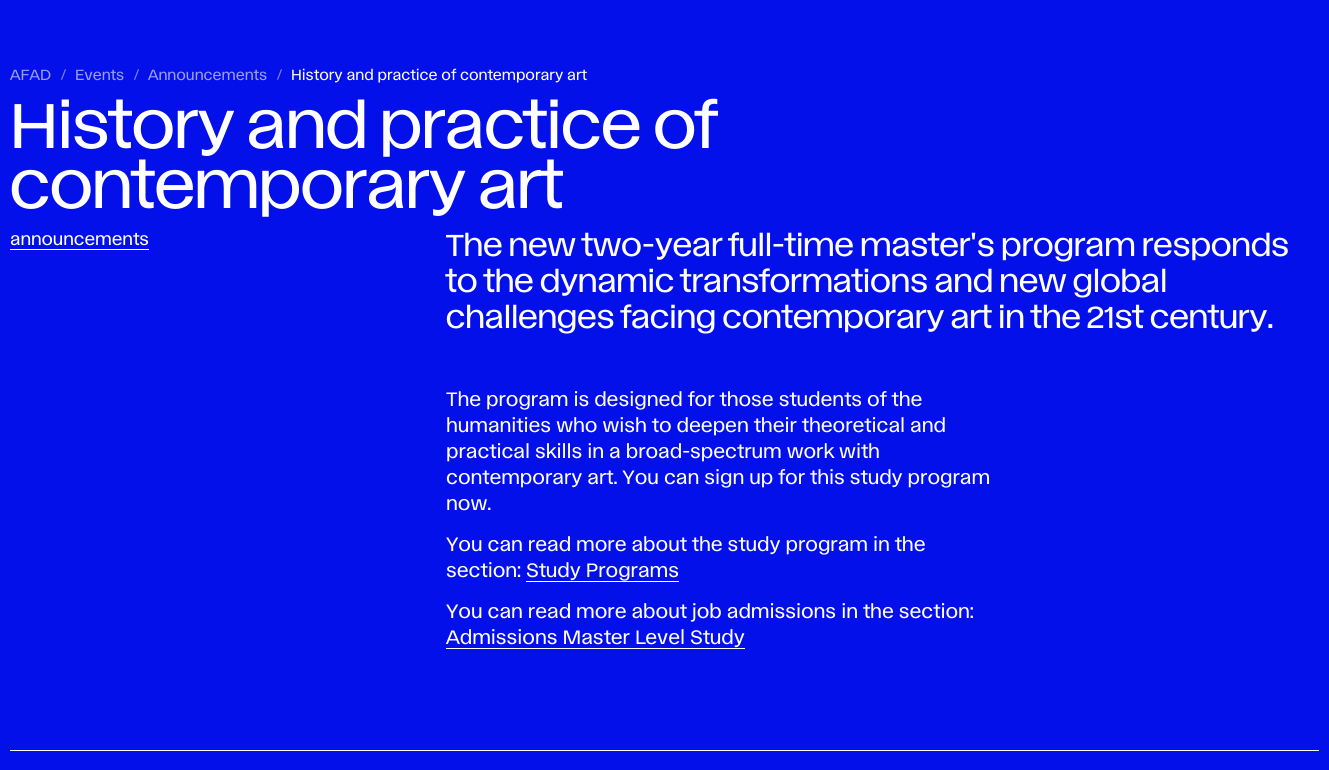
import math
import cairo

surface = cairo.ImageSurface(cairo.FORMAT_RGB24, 1329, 770)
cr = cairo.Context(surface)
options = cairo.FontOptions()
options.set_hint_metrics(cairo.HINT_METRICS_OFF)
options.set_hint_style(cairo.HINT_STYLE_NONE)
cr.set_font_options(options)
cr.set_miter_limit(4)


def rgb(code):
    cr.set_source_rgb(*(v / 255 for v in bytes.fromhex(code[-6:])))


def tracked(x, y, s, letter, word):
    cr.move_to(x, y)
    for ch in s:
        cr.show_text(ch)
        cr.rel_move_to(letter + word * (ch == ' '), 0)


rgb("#0410ea")
cr.paint()
rgb("#8288f5")
cr.new_path()
cr.move_to(65, 69)
cr.line_to(66, 69.5)
cr.line_to(62, 80)
cr.line_to(61, 79.5)
cr.close_path()
cr.fill()
cr.new_path()
cr.move_to(138, 69)
cr.line_to(139, 69.5)
cr.line_to(135, 80)
cr.line_to(134, 79.5)
cr.close_path()
cr.fill()
cr.new_path()
cr.move_to(281, 69)
cr.line_to(282, 69.5)
cr.line_to(278, 80)
cr.line_to(277, 79.5)
cr.close_path()
cr.fill()
for x, y, w, h, color in [
    (10, 249, 139, 1, "#ffffff"),
    (526, 581, 153, 1, "#ffffff"),
    (446, 648, 299, 1, "#ffffff"),
    (10, 750, 1309, 1, "#ffffff"),
]:
    rgb(color)
    cr.rectangle(x, y, w, h)
    cr.fill()
cr.select_font_face("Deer")
cr.set_font_size(11)
rgb("#9b9ff7")
for x, y, s in [
    (10, 80, "AFAD"),
    (75, 80, "Events"),
    (148, 80, "Announcements"),
]:
    cr.move_to(x, y)
    cr.show_text(s)
rgb("#ffffff")
cr.move_to(291, 80)
cr.show_text("History and practice of contemporary art")
cr.select_font_face("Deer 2")
cr.set_font_size(50)
cr.move_to(10, 148)
cr.show_text("History and practice of")
cr.move_to(10, 208)
cr.show_text("contemporary art")
cr.select_font_face("Deer")
cr.set_font_size(13)
cr.move_to(10, 245)
cr.show_text("announcements")
cr.select_font_face("Deer 2")
cr.set_font_size(24)
for x, y, s in [
    (446, 256, "The new two-year full-time master's program responds"),
    (446, 292, "to the dynamic transformations and new global"),
    (446, 328, "challenges facing contemporary art in the 21st century."),
]:
    tracked(x, y, s, 0.25, 0)
cr.select_font_face("Deer")
cr.set_font_size(14.5)
for x, y, s in [
    (446, 406, "The program is designed for those students of the"),
    (446, 432, "humanities who wish to deepen their theoretical and"),
    (446, 458, "practical skills in a broad-spectrum work with"),
    (446, 484, "contemporary art. You can sign up for this study program"),
    (446, 510, "now."),
    (446, 551, "You can read more about the study program in the"),
    (446, 577, "section: Study Programs"),
    (446, 618, "You can read more about job admissions in the section:"),
    (446, 644, "Admissions Master Level Study"),
]:
    cr.move_to(x, y)
    cr.show_text(s)
surface.write_to_png("page.png")
